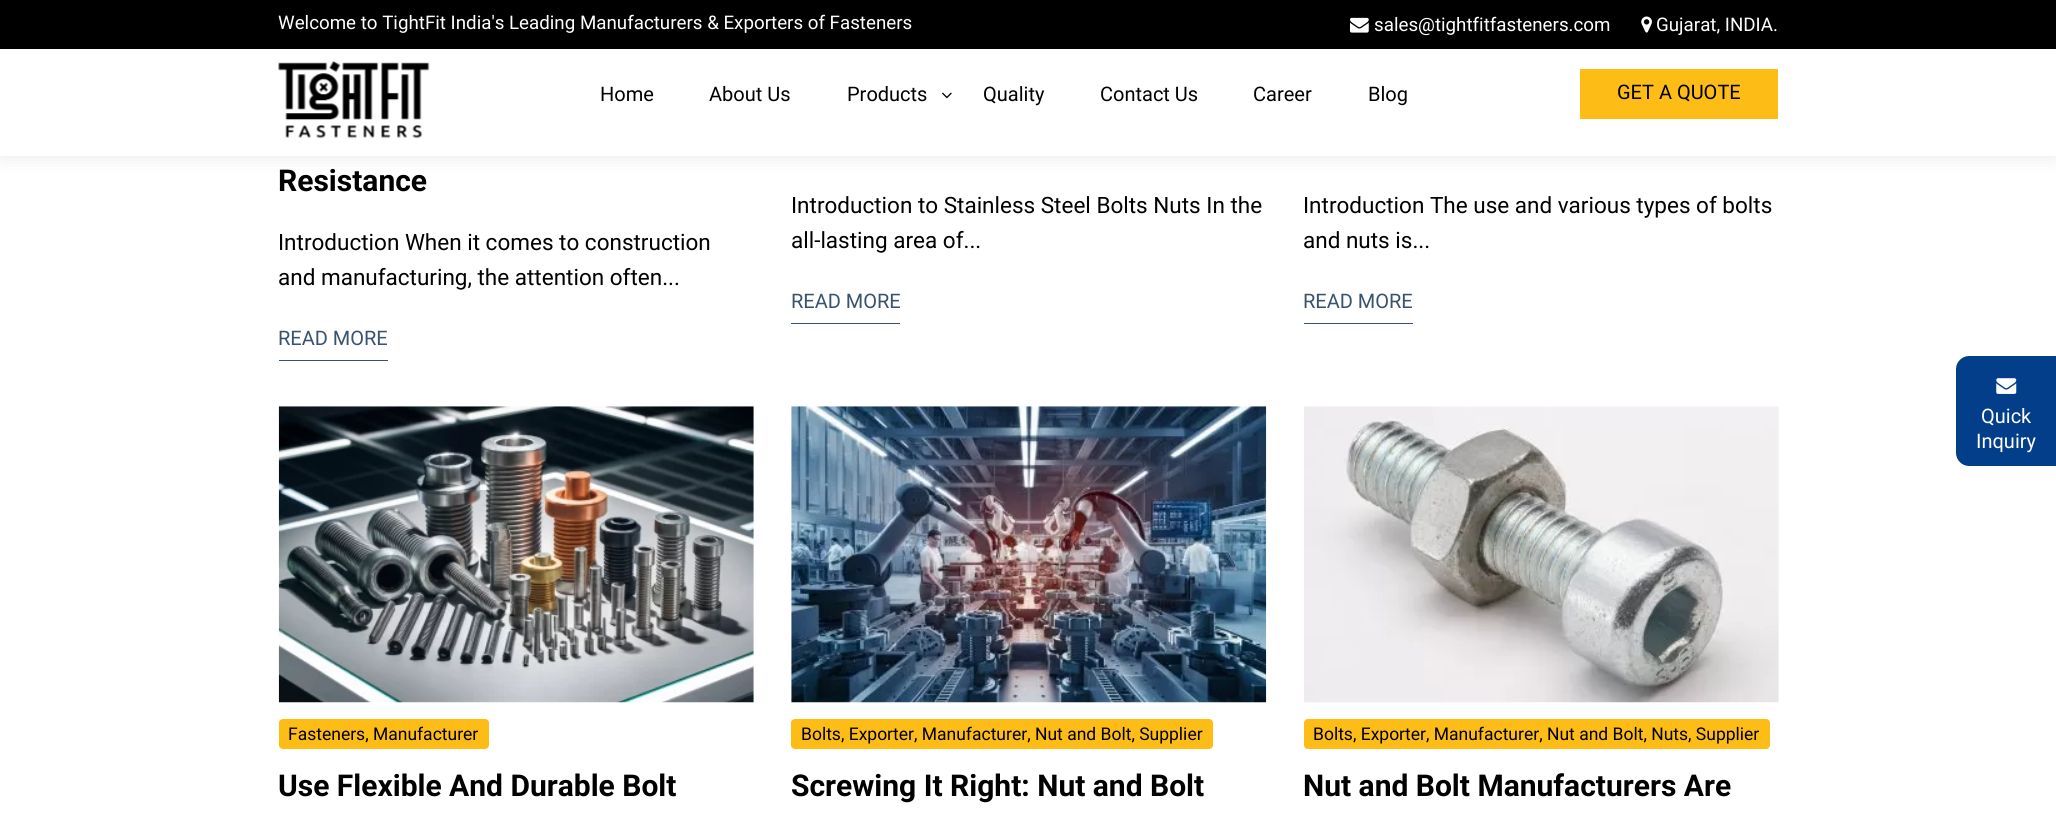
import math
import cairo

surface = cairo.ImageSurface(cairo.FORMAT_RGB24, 2056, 822)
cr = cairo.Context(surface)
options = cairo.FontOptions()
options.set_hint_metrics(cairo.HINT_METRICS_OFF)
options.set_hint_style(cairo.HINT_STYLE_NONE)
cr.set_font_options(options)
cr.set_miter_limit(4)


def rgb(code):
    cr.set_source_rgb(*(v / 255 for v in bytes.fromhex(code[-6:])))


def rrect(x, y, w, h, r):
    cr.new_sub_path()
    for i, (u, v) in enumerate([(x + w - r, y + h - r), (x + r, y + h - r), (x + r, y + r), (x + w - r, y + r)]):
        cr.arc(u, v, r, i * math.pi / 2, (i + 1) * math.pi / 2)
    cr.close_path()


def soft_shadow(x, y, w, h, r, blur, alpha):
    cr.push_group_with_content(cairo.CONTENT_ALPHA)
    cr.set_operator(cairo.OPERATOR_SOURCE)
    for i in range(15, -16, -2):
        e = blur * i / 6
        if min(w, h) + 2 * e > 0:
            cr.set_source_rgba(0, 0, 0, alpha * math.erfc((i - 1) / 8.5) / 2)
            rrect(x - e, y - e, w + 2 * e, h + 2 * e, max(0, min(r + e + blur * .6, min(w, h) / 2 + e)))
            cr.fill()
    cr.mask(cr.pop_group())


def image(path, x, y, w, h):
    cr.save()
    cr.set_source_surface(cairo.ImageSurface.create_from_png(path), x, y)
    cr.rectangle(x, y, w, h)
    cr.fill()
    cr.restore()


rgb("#ffffff")
cr.paint()
rgb("#000000")
soft_shadow(0, 0, 2056, 156, 0, 9.5, 0.1)
rgb("#ffffff")
cr.rectangle(0, 49, 2056, 107)
cr.fill()
rgb("#000000")
cr.rectangle(0, 0, 2056, 49)
cr.fill()
image("img/1.png", 1350, 17, 19, 16)
image("img/2.png", 1641, 16, 11, 17)
image("img/3.png", 278, 61, 152, 78)
image("img/4.png", 942, 92, 10, 7)
for x, y, w, h, color in [
    (1580, 69, 198, 50, "#febc16"),
    (279, 360, 109, 1, "#3a5270"),
    (791, 323, 109, 1, "#3a5270"),
    (1304, 323, 109, 1, "#3a5270"),
]:
    rgb(color)
    cr.rectangle(x, y, w, h)
    cr.fill()
image("img/5.png", 278, 406, 476, 297)
rgb("#febc16")
rrect(279, 719, 210, 30, 4)
cr.fill()
image("img/6.png", 791, 406, 476, 297)
rrect(791, 719, 422, 30, 4)
cr.fill()
image("img/7.png", 1304, 406, 475, 297)
rrect(1304, 719, 466, 30, 4)
cr.fill()
rgb("#023e8a")
cr.new_path()
cr.move_to(1969, 356)
cr.line_to(2056, 356)
cr.line_to(2056, 466)
cr.line_to(1969, 466)
cr.curve_to(1962, 466, 1956, 460, 1956, 453)
cr.line_to(1956, 369)
cr.curve_to(1956, 362, 1962, 356, 1969, 356)
cr.close_path()
cr.fill()
image("img/8.png", 1996, 378, 21, 16)
cr.select_font_face("Roboto")
cr.set_font_size(18.75)
rgb("#ffffff")
for x, y, s in [
    (278, 29, "Welcome to TightFit India's Leading Manufacturers & Exporters of Fasteners"),
    (1374, 31, "sales@tightfitfasteners.com"),
    (1656, 31, "Gujarat, INDIA."),
]:
    cr.move_to(x, y)
    cr.show_text(s)
cr.set_font_size(20)
rgb("#000000")
for x, y, s in [
    (600, 101, "Home"),
    (709, 101, "About Us"),
    (847, 101, "Products"),
    (983, 101, "Quality"),
    (1100, 101, "Contact Us"),
    (1253, 101, "Career"),
    (1368, 101, "Blog"),
    (1617, 99, "GET A QUOTE"),
]:
    cr.move_to(x, y)
    cr.show_text(s)
cr.select_font_face("Roboto", cairo.FONT_SLANT_NORMAL, cairo.FONT_WEIGHT_BOLD)
cr.set_font_size(30)
cr.move_to(278, 191)
cr.show_text("Resistance")
cr.select_font_face("Roboto")
cr.set_font_size(22.5)
cr.move_to(278, 250)
cr.show_text("Introduction When it comes to construction")
cr.move_to(278, 285)
cr.show_text("and manufacturing, the attention often...")
cr.set_font_size(20)
rgb("#3a5270")
cr.move_to(278, 345)
cr.show_text("READ MORE")
cr.set_font_size(22.5)
rgb("#000000")
cr.move_to(791, 213)
cr.show_text("Introduction to Stainless Steel Bolts Nuts In the")
cr.move_to(791, 248)
cr.show_text("all-lasting area of...")
cr.set_font_size(20)
rgb("#3a5270")
cr.move_to(791, 308)
cr.show_text("READ MORE")
cr.set_font_size(22.5)
rgb("#000000")
cr.move_to(1303, 213)
cr.show_text("Introduction The use and various types of bolts")
cr.move_to(1303, 248)
cr.show_text("and nuts is...")
cr.set_font_size(20)
rgb("#3a5270")
cr.move_to(1303, 308)
cr.show_text("READ MORE")
cr.set_font_size(17.5)
rgb("#000000")
cr.move_to(288, 740)
cr.show_text("Fasteners, Manufacturer")
cr.select_font_face("Roboto", cairo.FONT_SLANT_NORMAL, cairo.FONT_WEIGHT_BOLD)
cr.set_font_size(30)
cr.move_to(278, 796)
cr.show_text("Use Flexible And Durable Bolt")
cr.select_font_face("Roboto")
cr.set_font_size(17.5)
cr.move_to(801, 740)
cr.show_text("Bolts, Exporter, Manufacturer, Nut and Bolt, Supplier")
cr.select_font_face("Roboto", cairo.FONT_SLANT_NORMAL, cairo.FONT_WEIGHT_BOLD)
cr.set_font_size(30)
cr.move_to(791, 796)
cr.show_text("Screwing It Right: Nut and Bolt")
cr.select_font_face("Roboto")
cr.set_font_size(17.5)
cr.move_to(1313, 740)
cr.show_text("Bolts, Exporter, Manufacturer, Nut and Bolt, Nuts, Supplier")
cr.select_font_face("Roboto", cairo.FONT_SLANT_NORMAL, cairo.FONT_WEIGHT_BOLD)
cr.set_font_size(30)
cr.move_to(1303, 796)
cr.show_text("Nut and Bolt Manufacturers Are")
cr.select_font_face("Roboto")
cr.set_font_size(20)
rgb("#ffffff")
cr.move_to(1981, 423)
cr.show_text("Quick")
cr.move_to(1976, 448)
cr.show_text("Inquiry")
surface.write_to_png("page.png")
